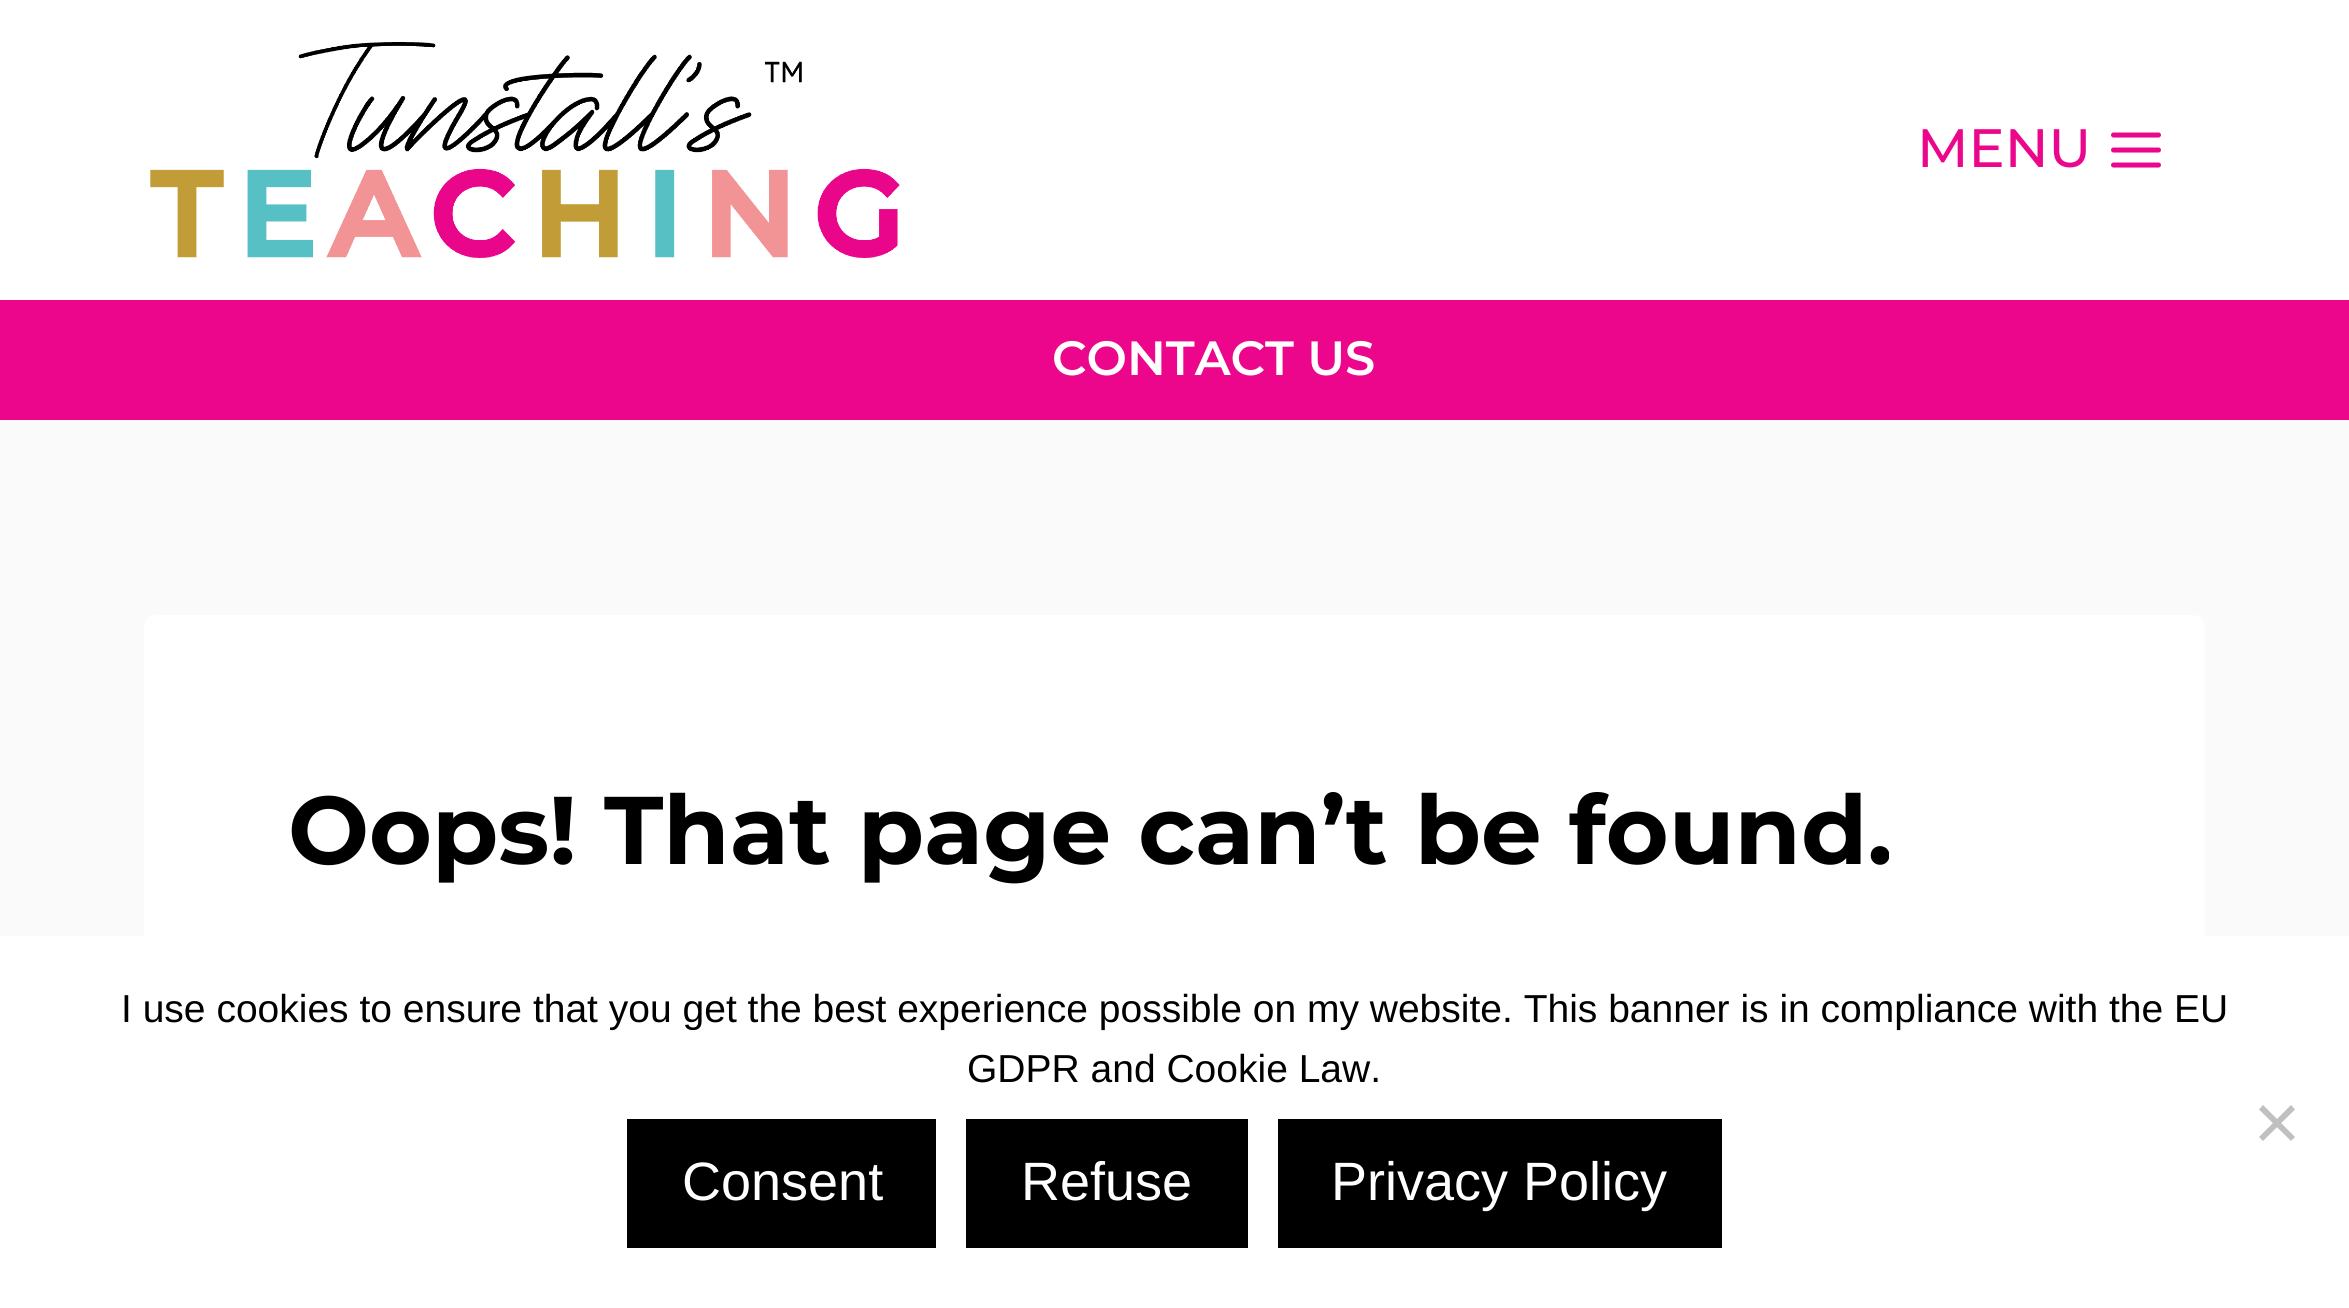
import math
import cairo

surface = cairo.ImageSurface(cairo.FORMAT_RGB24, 2349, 1308)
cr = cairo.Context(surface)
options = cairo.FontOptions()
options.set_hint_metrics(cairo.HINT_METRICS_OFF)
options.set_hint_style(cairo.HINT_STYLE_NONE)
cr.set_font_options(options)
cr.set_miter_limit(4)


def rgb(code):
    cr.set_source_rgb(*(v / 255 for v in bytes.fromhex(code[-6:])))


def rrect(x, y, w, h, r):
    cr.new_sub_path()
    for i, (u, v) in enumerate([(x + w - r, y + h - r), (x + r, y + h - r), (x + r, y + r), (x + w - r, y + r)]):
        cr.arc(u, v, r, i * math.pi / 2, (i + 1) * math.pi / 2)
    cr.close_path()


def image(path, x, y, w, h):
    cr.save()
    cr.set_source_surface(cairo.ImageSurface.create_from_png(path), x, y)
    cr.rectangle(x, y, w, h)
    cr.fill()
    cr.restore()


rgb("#fafafa")
cr.paint()
rgb("#ffffff")
cr.rectangle(0, 0, 2349, 300)
cr.fill()
image("img/1.png", 150, 42, 750, 216)
image("img/2.png", 2111, 132, 50, 36)
rgb("#eb068b")
cr.rectangle(0, 300, 2349, 120)
cr.fill()
rgb("#ffffff")
rrect(144, 615, 2061, 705, 12)
cr.fill()
cr.rectangle(0, 936, 2349, 372)
cr.fill()
rgb("#c0c0c0")
cr.new_path()
cr.move_to(2291, 1105)
cr.line_to(2295, 1109.5)
cr.line_to(2263, 1141)
cr.line_to(2259, 1137)
cr.close_path()
cr.fill()
cr.new_path()
cr.move_to(2259, 1109.5)
cr.line_to(2263, 1105)
cr.line_to(2295, 1137)
cr.line_to(2291, 1141)
cr.close_path()
cr.fill()
for x, y, w, h, color in [
    (627, 1119, 309, 129, "#000000"),
    (966, 1119, 282, 129, "#000000"),
    (1278, 1119, 444, 129, "#000000"),
]:
    rgb(color)
    cr.rectangle(x, y, w, h)
    cr.fill()
cr.select_font_face("Montserrat Medium")
cr.set_font_size(54)
rgb("#eb068b")
cr.move_to(1917, 167)
cr.show_text("MENU")
cr.select_font_face("Montserrat SemiBold")
cr.set_font_size(48)
rgb("#ffffff")
cr.move_to(1052, 375)
cr.show_text("CONTACT US")
cr.select_font_face("Montserrat", cairo.FONT_SLANT_NORMAL, cairo.FONT_WEIGHT_BOLD)
cr.set_font_size(96)
rgb("#000000")
cr.move_to(288, 864)
cr.show_text("Oops! That page can’t be found.")
cr.select_font_face("Liberation Sans")
cr.set_font_size(39)
cr.move_to(121, 1022)
cr.show_text("I use cookies to ensure that you get the best experience possible on my website. This banner is in compliance with the EU")
cr.move_to(967, 1082)
cr.show_text("GDPR and Cookie Law.")
cr.set_font_size(54)
rgb("#ffffff")
for x, y, s in [
    (682, 1200, "Consent"),
    (1021, 1200, "Refuse"),
    (1331, 1200, "Privacy Policy"),
]:
    cr.move_to(x, y)
    cr.show_text(s)
surface.write_to_png("page.png")
